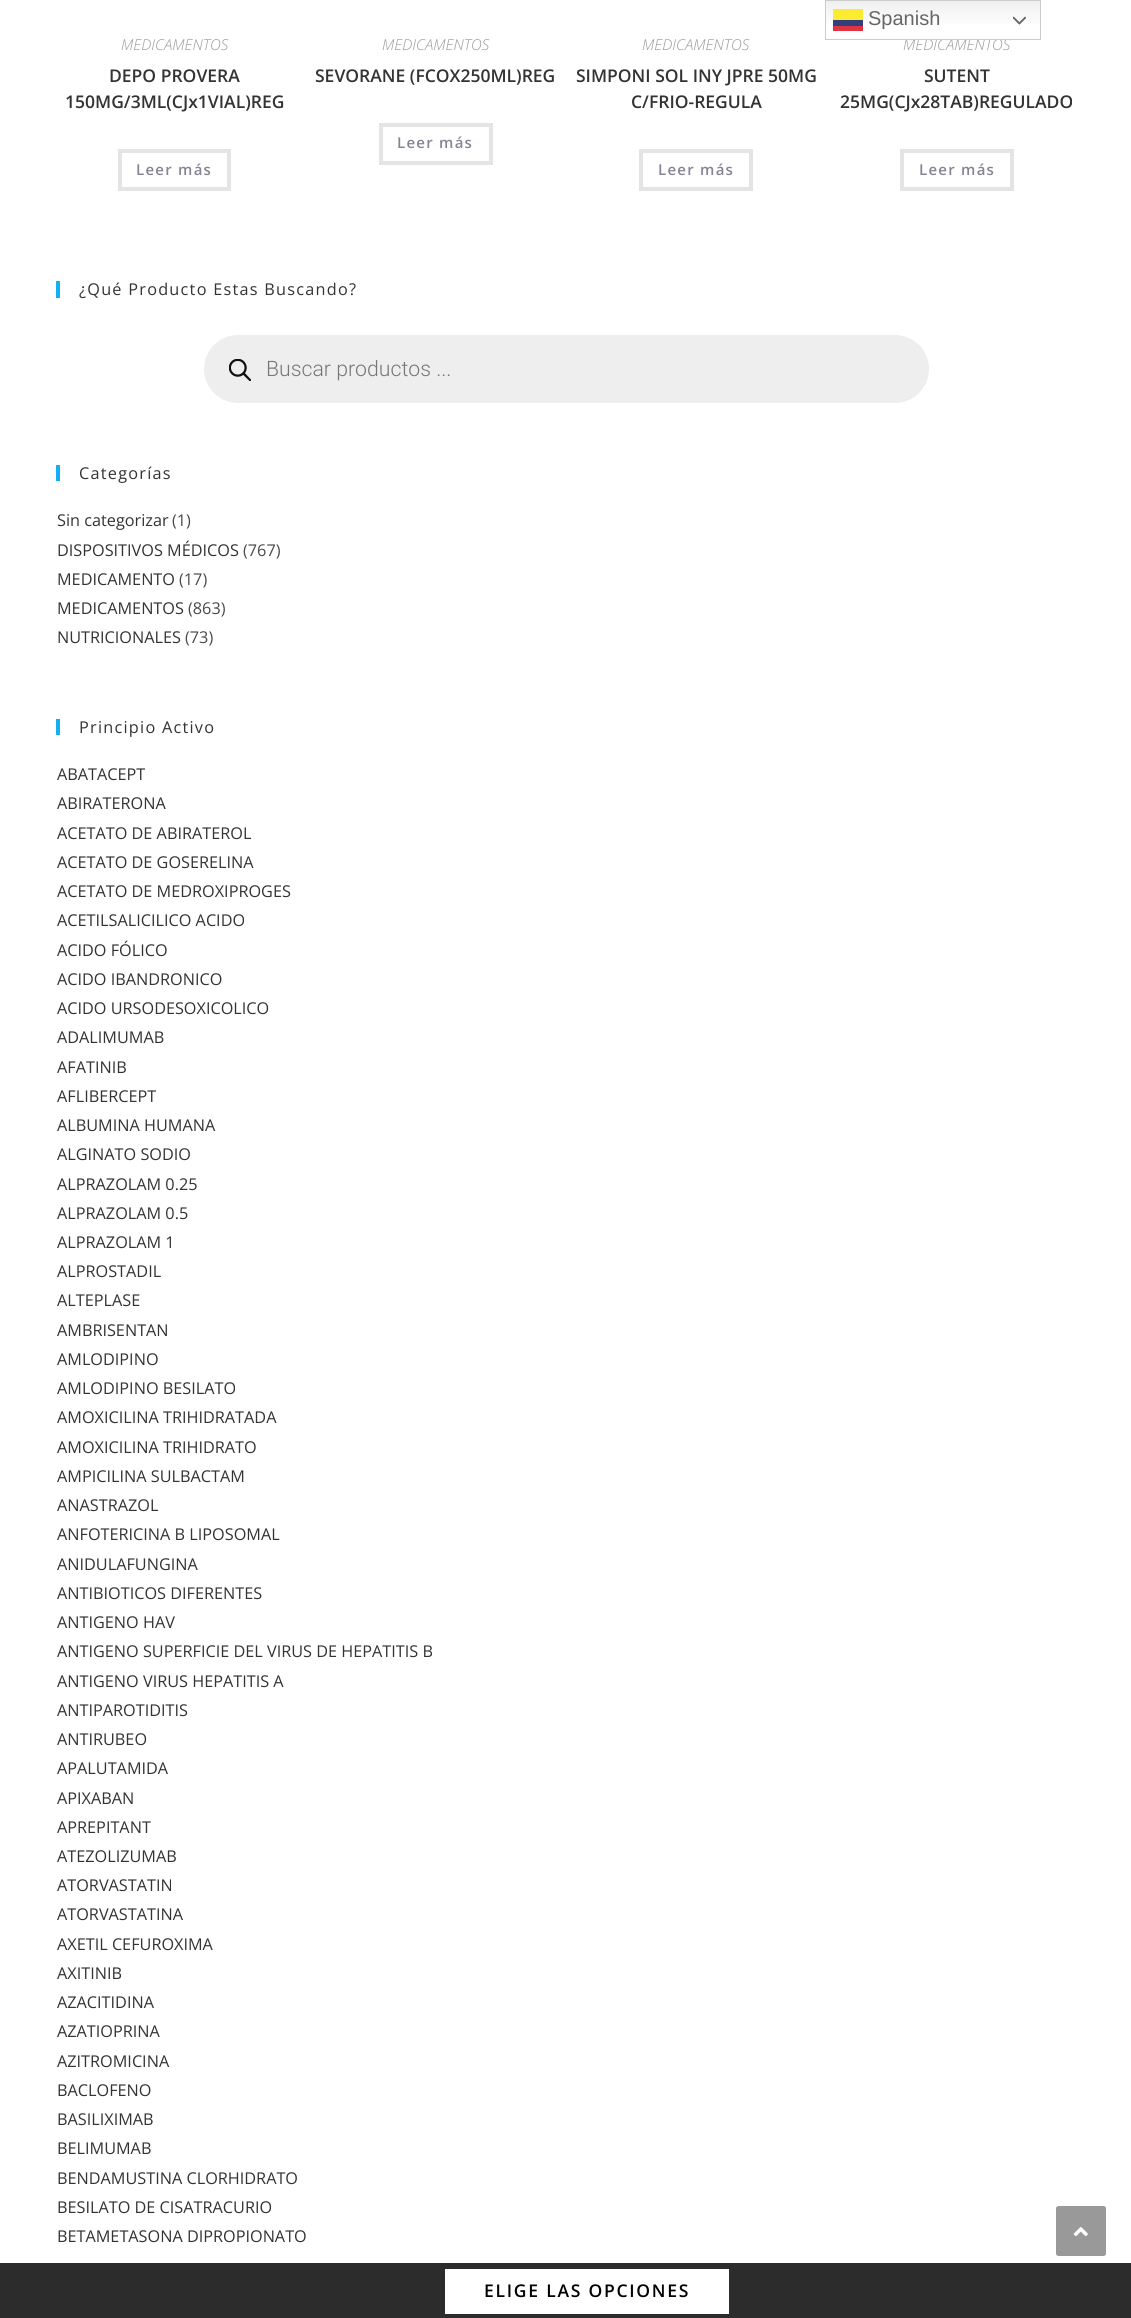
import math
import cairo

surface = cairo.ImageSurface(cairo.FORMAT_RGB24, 1131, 2318)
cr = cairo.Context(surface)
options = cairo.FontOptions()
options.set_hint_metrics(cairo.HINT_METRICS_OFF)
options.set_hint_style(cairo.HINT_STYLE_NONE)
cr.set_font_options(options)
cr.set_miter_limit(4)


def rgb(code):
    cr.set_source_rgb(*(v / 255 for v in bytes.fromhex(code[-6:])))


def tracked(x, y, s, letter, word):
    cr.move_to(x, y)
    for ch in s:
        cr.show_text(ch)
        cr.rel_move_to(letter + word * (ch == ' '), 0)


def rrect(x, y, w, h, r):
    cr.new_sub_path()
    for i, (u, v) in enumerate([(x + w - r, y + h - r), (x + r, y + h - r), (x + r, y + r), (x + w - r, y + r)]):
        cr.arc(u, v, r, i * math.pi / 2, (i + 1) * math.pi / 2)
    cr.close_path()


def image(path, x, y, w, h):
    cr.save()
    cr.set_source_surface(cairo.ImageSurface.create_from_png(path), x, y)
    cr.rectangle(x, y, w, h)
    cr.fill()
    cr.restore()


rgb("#ffffff")
cr.paint()
gradient = cairo.LinearGradient(933, 0, 933, 40)
gradient.add_color_stop_rgba(0, 0.937, 0.937, 0.937, 1)
gradient.add_color_stop_rgba(0.7, 1, 1, 1, 1)
cr.set_source(gradient)
cr.rectangle(826, 1, 214, 23)
cr.fill()
gradient = cairo.LinearGradient(933, 0, 933, 40)
gradient.add_color_stop_rgba(0, 0.988, 0.914, 0.188, 1)
gradient.add_color_stop_rgba(0.7, 1, 0.929, 0.2, 1)
cr.set_source(gradient)
cr.rectangle(833, 9, 30, 11)
cr.fill()
cr.rectangle(120, 151, 109, 38)
rgb("#e4e4e4")
cr.set_line_width(4)
cr.stroke()
cr.rectangle(381, 125, 110, 38)
cr.stroke()
cr.rectangle(641, 151, 110, 38)
cr.stroke()
cr.rectangle(902, 151, 110, 38)
cr.stroke()
rgb("#13aff0")
cr.rectangle(56, 281, 4, 17)
cr.fill()
rgb("#eeeeee")
rrect(204, 335, 725, 68, 34)
cr.fill()
image("img/2.png", 229, 359, 22, 22)
for x, y, w, h, color in [
    (56, 465, 4, 16, "#13aff0"),
    (56, 719, 4, 16, "#13aff0"),
    (0, 2263, 1131, 55, "#2c2c2c"),
    (445, 2269, 284, 45, "#ffffff"),
]:
    rgb(color)
    cr.rectangle(x, y, w, h)
    cr.fill()
rgb("#999999")
rrect(1056, 2206, 50, 50, 2.5)
cr.fill()
image("img/3.png", 1073, 2227, 15, 9)
cr.select_font_face("Open Sans Light", cairo.FONT_SLANT_ITALIC)
cr.set_font_size(15)
cr.move_to(121, 50)
cr.show_text("MEDICAMENTOS")
cr.select_font_face("Open Sans SemiBold")
cr.set_font_size(17.5)
rgb("#333333")
cr.move_to(109, 82)
cr.show_text("DEPO PROVERA")
cr.move_to(65, 108)
cr.show_text("150MG/3ML(CJx1VIAL)REG")
cr.set_font_size(15)
rgb("#848494")
tracked(136, 175, "Leer más", 1.25, 0)
cr.select_font_face("Open Sans Light", cairo.FONT_SLANT_ITALIC)
rgb("#999999")
cr.move_to(382, 50)
cr.show_text("MEDICAMENTOS")
cr.select_font_face("Open Sans SemiBold")
cr.set_font_size(17.5)
rgb("#333333")
cr.move_to(315, 82)
cr.show_text("SEVORANE (FCOX250ML)REG")
cr.set_font_size(15)
rgb("#848494")
tracked(397, 148, "Leer más", 1.25, 0)
cr.select_font_face("Open Sans Light", cairo.FONT_SLANT_ITALIC)
rgb("#999999")
cr.move_to(642, 50)
cr.show_text("MEDICAMENTOS")
cr.select_font_face("Open Sans SemiBold")
cr.set_font_size(17.5)
rgb("#333333")
cr.move_to(576, 82)
cr.show_text("SIMPONI SOL INY JPRE 50MG")
cr.move_to(631, 108)
cr.show_text("C/FRIO-REGULA")
cr.set_font_size(15)
rgb("#848494")
tracked(658, 175, "Leer más", 1.25, 0)
cr.select_font_face("Open Sans Light", cairo.FONT_SLANT_ITALIC)
rgb("#999999")
cr.move_to(903, 50)
cr.show_text("MEDICAMENTOS")
cr.rectangle(825.5, 0.5, 215, 39)
rgb("#cccccc")
cr.set_line_width(1)
cr.stroke()
image("img/1.png", 1013, 16, 13, 9)
rgb("#e13340")
cr.rectangle(833, 26, 30, 5)
cr.fill()
rgb("#333f7c")
cr.rectangle(833, 20, 30, 6)
cr.fill()
cr.select_font_face("Liberation Sans")
cr.set_font_size(20)
rgb("#666666")
cr.move_to(868, 25)
cr.show_text("Spanish")
cr.select_font_face("Open Sans SemiBold")
cr.set_font_size(17.5)
rgb("#333333")
cr.move_to(924, 82)
cr.show_text("SUTENT")
cr.move_to(840, 108)
cr.show_text("25MG(CJx28TAB)REGULADO")
cr.set_font_size(15)
rgb("#848494")
tracked(919, 175, "Leer más", 1.25, 0)
cr.select_font_face("Open Sans")
cr.set_font_size(16.25)
rgb("#333333")
tracked(79, 295, "¿Qué Producto Estas Buscando?", 1.25, 0)
cr.select_font_face("Roboto Light")
cr.set_font_size(21.25)
rgb("#777777")
cr.move_to(266, 376)
cr.show_text("Buscar productos ...")
cr.select_font_face("Open Sans")
cr.set_font_size(16.25)
rgb("#333333")
tracked(79, 479, "Categorías", 1.25, 0)
cr.move_to(57, 526)
cr.show_text("Sin categorizar")
rgb("#4a4a4a")
cr.move_to(172, 526)
cr.show_text("(1)")
rgb("#333333")
cr.move_to(57, 556)
cr.show_text("DISPOSITIVOS MÉDICOS")
rgb("#4a4a4a")
cr.move_to(243, 556)
cr.show_text("(767)")
rgb("#333333")
cr.move_to(57, 585)
cr.show_text("MEDICAMENTO")
rgb("#4a4a4a")
cr.move_to(179, 585)
cr.show_text("(17)")
rgb("#333333")
cr.move_to(57, 614)
cr.show_text("MEDICAMENTOS")
rgb("#4a4a4a")
cr.move_to(188, 614)
cr.show_text("(863)")
rgb("#333333")
cr.move_to(57, 643)
cr.show_text("NUTRICIONALES")
rgb("#4a4a4a")
cr.move_to(185, 643)
cr.show_text("(73)")
rgb("#333333")
tracked(79, 733, "Principio Activo", 1.25, 0)
for x, y, s in [
    (57, 780, "ABATACEPT"),
    (57, 809, "ABIRATERONA"),
    (57, 839, "ACETATO DE ABIRATEROL"),
    (57, 868, "ACETATO DE GOSERELINA"),
    (57, 897, "ACETATO DE MEDROXIPROGES"),
    (57, 926, "ACETILSALICILICO ACIDO"),
    (57, 956, "ACIDO FÓLICO"),
    (57, 985, "ACIDO IBANDRONICO"),
    (57, 1014, "ACIDO URSODESOXICOLICO"),
    (57, 1043, "ADALIMUMAB"),
    (57, 1073, "AFATINIB"),
    (57, 1102, "AFLIBERCEPT"),
    (57, 1131, "ALBUMINA HUMANA"),
    (57, 1160, "ALGINATO SODIO"),
    (57, 1190, "ALPRAZOLAM 0.25"),
    (57, 1219, "ALPRAZOLAM 0.5"),
    (57, 1248, "ALPRAZOLAM 1"),
    (57, 1277, "ALPROSTADIL"),
    (57, 1306, "ALTEPLASE"),
    (57, 1336, "AMBRISENTAN"),
    (57, 1365, "AMLODIPINO"),
    (57, 1394, "AMLODIPINO BESILATO"),
    (57, 1423, "AMOXICILINA TRIHIDRATADA"),
    (57, 1453, "AMOXICILINA TRIHIDRATO"),
    (57, 1482, "AMPICILINA SULBACTAM"),
    (57, 1511, "ANASTRAZOL"),
    (57, 1540, "ANFOTERICINA B LIPOSOMAL"),
    (57, 1570, "ANIDULAFUNGINA"),
    (57, 1599, "ANTIBIOTICOS DIFERENTES"),
    (57, 1628, "ANTIGENO HAV"),
    (57, 1657, "ANTIGENO SUPERFICIE DEL VIRUS DE HEPATITIS B"),
    (57, 1687, "ANTIGENO VIRUS HEPATITIS A"),
    (57, 1716, "ANTIPAROTIDITIS"),
    (57, 1745, "ANTIRUBEO"),
    (57, 1774, "APALUTAMIDA"),
    (57, 1804, "APIXABAN"),
    (57, 1833, "APREPITANT"),
    (57, 1862, "ATEZOLIZUMAB"),
    (57, 1891, "ATORVASTATIN"),
    (57, 1920, "ATORVASTATINA"),
    (57, 1950, "AXETIL CEFUROXIMA"),
    (57, 1979, "AXITINIB"),
    (57, 2008, "AZACITIDINA"),
    (57, 2037, "AZATIOPRINA"),
    (57, 2067, "AZITROMICINA"),
    (57, 2096, "BACLOFENO"),
    (57, 2125, "BASILIXIMAB"),
    (57, 2154, "BELIMUMAB"),
    (57, 2184, "BENDAMUSTINA CLORHIDRATO"),
    (57, 2213, "BESILATO DE CISATRACURIO"),
    (57, 2242, "BETAMETASONA DIPROPIONATO"),
]:
    cr.move_to(x, y)
    cr.show_text(s)
cr.select_font_face("Open Sans SemiBold")
cr.set_font_size(17.5)
rgb("#000000")
tracked(484, 2297, "ELIGE LAS OPCIONES", 1.75, 0)
surface.write_to_png("page.png")
